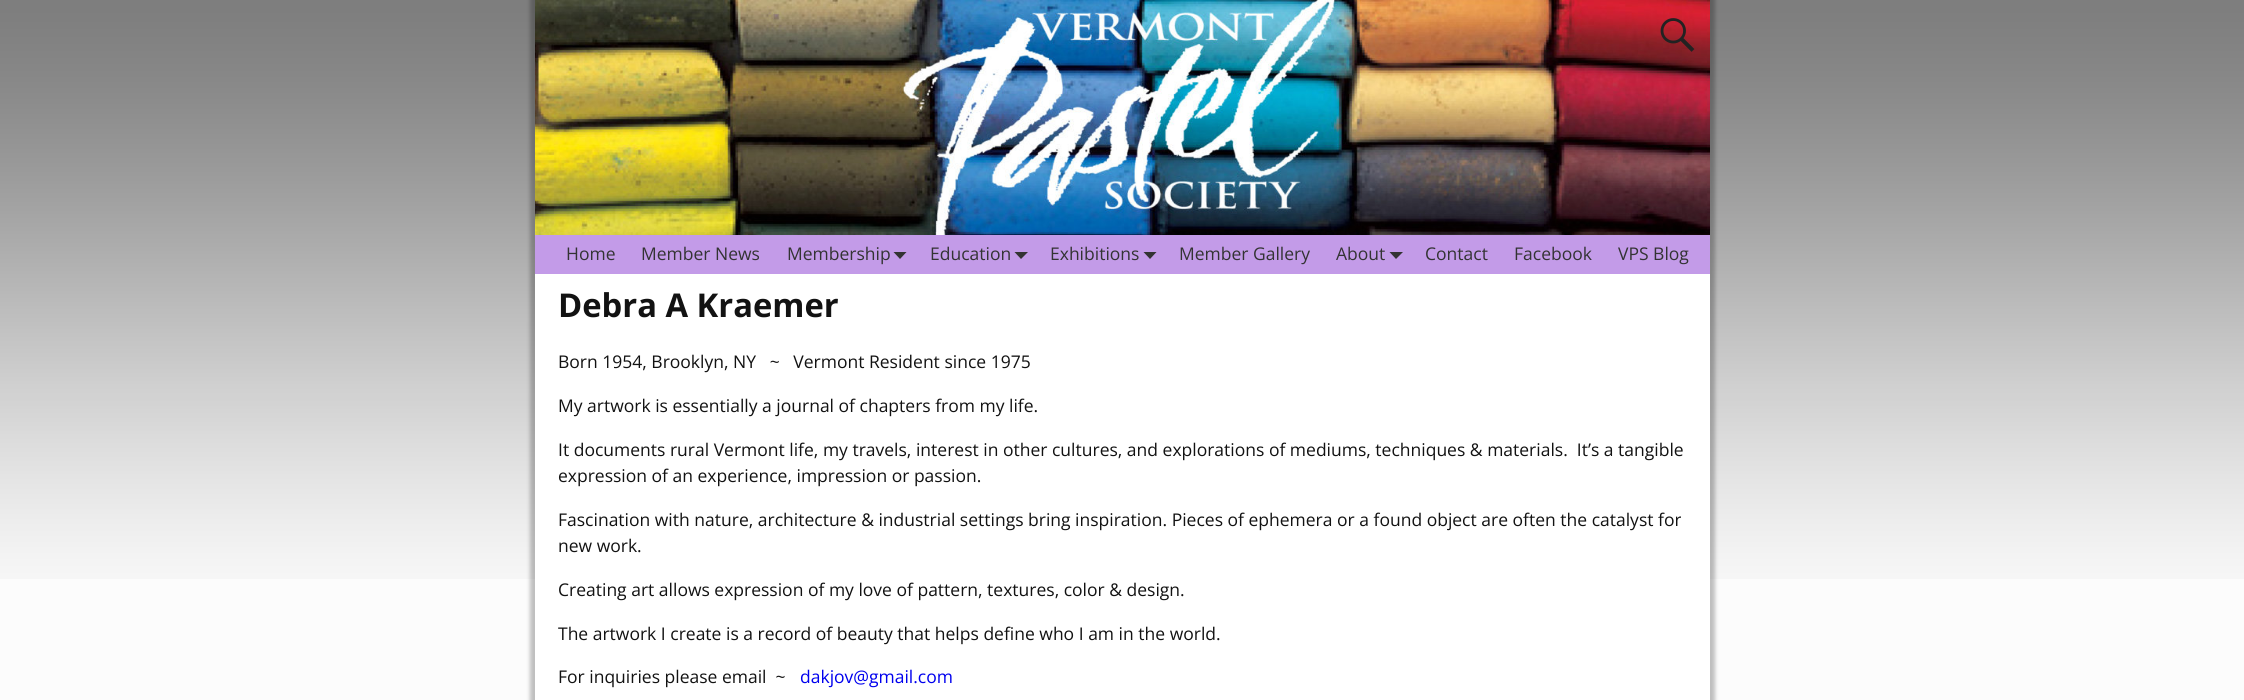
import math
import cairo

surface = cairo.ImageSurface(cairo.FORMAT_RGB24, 2244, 700)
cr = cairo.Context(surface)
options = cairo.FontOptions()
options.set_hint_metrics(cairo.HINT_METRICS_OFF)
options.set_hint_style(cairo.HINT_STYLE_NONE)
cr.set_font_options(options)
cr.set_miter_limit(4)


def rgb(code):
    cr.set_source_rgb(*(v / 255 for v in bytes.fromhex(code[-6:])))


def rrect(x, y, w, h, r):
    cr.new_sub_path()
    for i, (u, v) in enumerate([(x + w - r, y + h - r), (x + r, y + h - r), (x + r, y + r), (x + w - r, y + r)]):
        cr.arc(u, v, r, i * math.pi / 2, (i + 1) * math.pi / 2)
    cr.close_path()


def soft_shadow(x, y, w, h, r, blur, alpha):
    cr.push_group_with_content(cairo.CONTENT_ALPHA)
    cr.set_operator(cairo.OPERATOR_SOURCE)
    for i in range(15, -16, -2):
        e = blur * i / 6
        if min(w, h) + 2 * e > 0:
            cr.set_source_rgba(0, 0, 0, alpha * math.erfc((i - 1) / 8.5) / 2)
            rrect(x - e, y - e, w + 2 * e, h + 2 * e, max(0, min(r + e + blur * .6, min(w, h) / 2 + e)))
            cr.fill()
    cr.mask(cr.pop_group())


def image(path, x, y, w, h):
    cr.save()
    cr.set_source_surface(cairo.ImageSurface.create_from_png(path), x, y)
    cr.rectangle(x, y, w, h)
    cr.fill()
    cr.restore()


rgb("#fcfcfc")
cr.paint()
image("img/1.png", 0, 0, 2244, 579)
rgb("#000000")
soft_shadow(530, -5, 1185, 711, 0, 2, 0.25)
rgb("#ffffff")
cr.rectangle(535, 274, 1175, 426)
cr.fill()
image("img/2.png", 535, 0, 1175, 235)
image("img/3.png", 1660, 18, 35, 34)
rgb("#c39be8")
cr.rectangle(535, 235, 1175, 39)
cr.fill()
rgb("#333333")
cr.new_path()
cr.move_to(893.5, 252)
cr.line_to(906.5, 252)
cr.line_to(900, 259)
cr.close_path()
cr.fill()
cr.new_path()
cr.move_to(1014.5, 252)
cr.line_to(1028, 252)
cr.line_to(1021, 259)
cr.close_path()
cr.fill()
cr.new_path()
cr.move_to(1143.5, 252)
cr.line_to(1156.5, 252)
cr.line_to(1150, 259)
cr.close_path()
cr.fill()
cr.new_path()
cr.move_to(1389.5, 252)
cr.line_to(1403, 252)
cr.line_to(1396, 259)
cr.close_path()
cr.fill()
cr.select_font_face("Open Sans")
cr.set_font_size(17.5)
for x, y, s in [
    (566, 260, "Home"),
    (641, 260, "Member News"),
    (787, 260, "Membership"),
    (930, 260, "Education"),
    (1050, 260, "Exhibitions"),
    (1179, 260, "Member Gallery"),
    (1336, 260, "About"),
    (1425, 260, "Contact"),
    (1514, 260, "Facebook"),
    (1618, 260, "VPS Blog"),
]:
    cr.move_to(x, y)
    cr.show_text(s)
cr.select_font_face("Open Sans", cairo.FONT_SLANT_NORMAL, cairo.FONT_WEIGHT_BOLD)
cr.set_font_size(32.75)
rgb("#121212")
cr.move_to(558, 317)
cr.show_text("Debra A Kraemer")
cr.select_font_face("Open Sans")
cr.set_font_size(17.5)
for x, y, s in [
    (558, 368, "Born 1954, Brooklyn, NY   ~   Vermont Resident since 1975"),
    (558, 412, "My artwork is essentially a journal of chapters from my life."),
    (558, 456, "It documents rural Vermont life, my travels, interest in other cultures, and explorations of mediums, techniques & materials.  It’s a tangible"),
    (558, 482, "expression of an experience, impression or passion."),
    (558, 526, "Fascination with nature, architecture & industrial settings bring inspiration. Pieces of ephemera or a found object are often the catalyst for"),
    (558, 552, "new work."),
    (558, 596, "Creating art allows expression of my love of pattern, textures, color & design."),
    (558, 640, "The artwork I create is a record of beauty that helps define who I am in the world."),
    (558, 683, "For inquiries please email  ~"),
]:
    cr.move_to(x, y)
    cr.show_text(s)
rgb("#0000ee")
cr.move_to(800, 683)
cr.show_text("dakjov@gmail.com")
surface.write_to_png("page.png")
